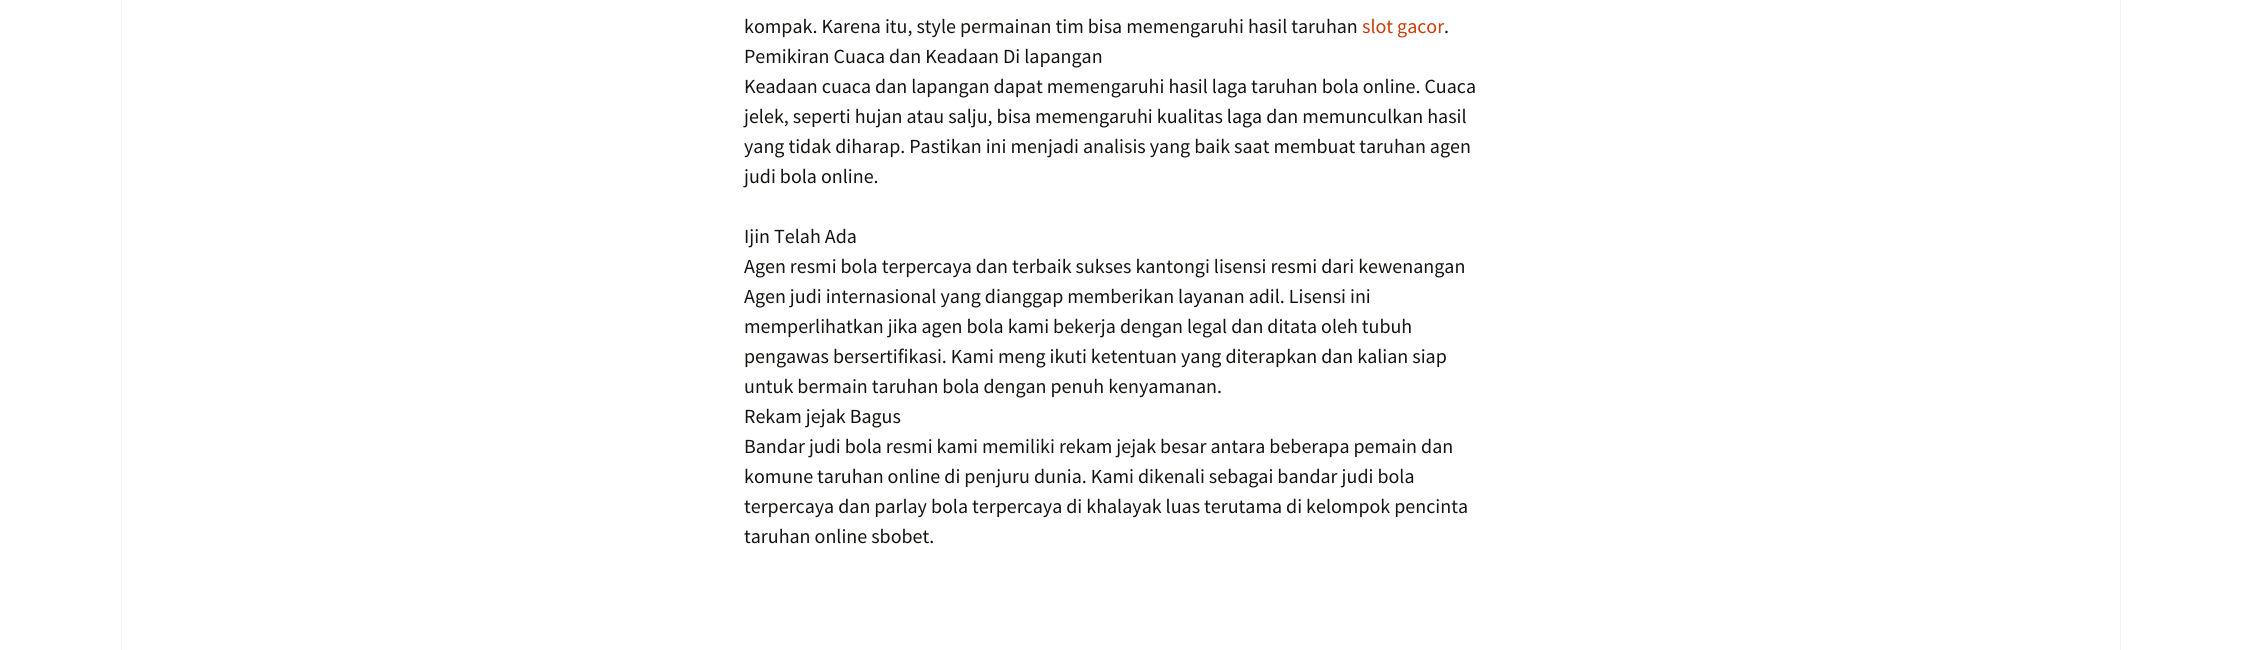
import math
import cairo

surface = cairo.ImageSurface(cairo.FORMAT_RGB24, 2242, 650)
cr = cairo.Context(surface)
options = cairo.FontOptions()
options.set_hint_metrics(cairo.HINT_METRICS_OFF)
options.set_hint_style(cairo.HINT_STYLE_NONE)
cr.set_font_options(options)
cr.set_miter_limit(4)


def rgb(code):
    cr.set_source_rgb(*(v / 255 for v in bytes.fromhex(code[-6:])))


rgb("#ffffff")
cr.paint()
rgb("#f2f2f2")
cr.rectangle(2120, 0, 1, 650)
cr.fill()
cr.rectangle(121, 0, 1, 650)
cr.fill()
cr.select_font_face("Source Sans Pro")
cr.set_font_size(20)
rgb("#141412")
cr.move_to(744, 33)
cr.show_text("kompak. Karena itu, style permainan tim bisa memengaruhi hasil taruhan")
rgb("#ca3c08")
cr.move_to(1362, 33)
cr.show_text("slot gacor")
rgb("#141412")
for x, y, s in [
    (1444, 33, "."),
    (744, 63, "Pemikiran Cuaca dan Keadaan Di lapangan"),
    (744, 93, "Keadaan cuaca dan lapangan dapat memengaruhi hasil laga taruhan bola online. Cuaca"),
    (744, 123, "jelek, seperti hujan atau salju, bisa memengaruhi kualitas laga dan memunculkan hasil"),
    (744, 153, "yang tidak diharap. Pastikan ini menjadi analisis yang baik saat membuat taruhan agen"),
    (744, 183, "judi bola online."),
    (744, 243, "Ijin Telah Ada"),
    (744, 273, "Agen resmi bola terpercaya dan terbaik sukses kantongi lisensi resmi dari kewenangan"),
    (744, 303, "Agen judi internasional yang dianggap memberikan layanan adil. Lisensi ini"),
    (744, 333, "memperlihatkan jika agen bola kami bekerja dengan legal dan ditata oleh tubuh"),
    (744, 363, "pengawas bersertifikasi. Kami meng ikuti ketentuan yang diterapkan dan kalian siap"),
    (744, 393, "untuk bermain taruhan bola dengan penuh kenyamanan."),
    (744, 423, "Rekam jejak Bagus"),
    (744, 453, "Bandar judi bola resmi kami memiliki rekam jejak besar antara beberapa pemain dan"),
    (744, 483, "komune taruhan online di penjuru dunia. Kami dikenali sebagai bandar judi bola"),
    (744, 513, "terpercaya dan parlay bola terpercaya di khalayak luas terutama di kelompok pencinta"),
    (744, 543, "taruhan online sbobet."),
]:
    cr.move_to(x, y)
    cr.show_text(s)
surface.write_to_png("page.png")
